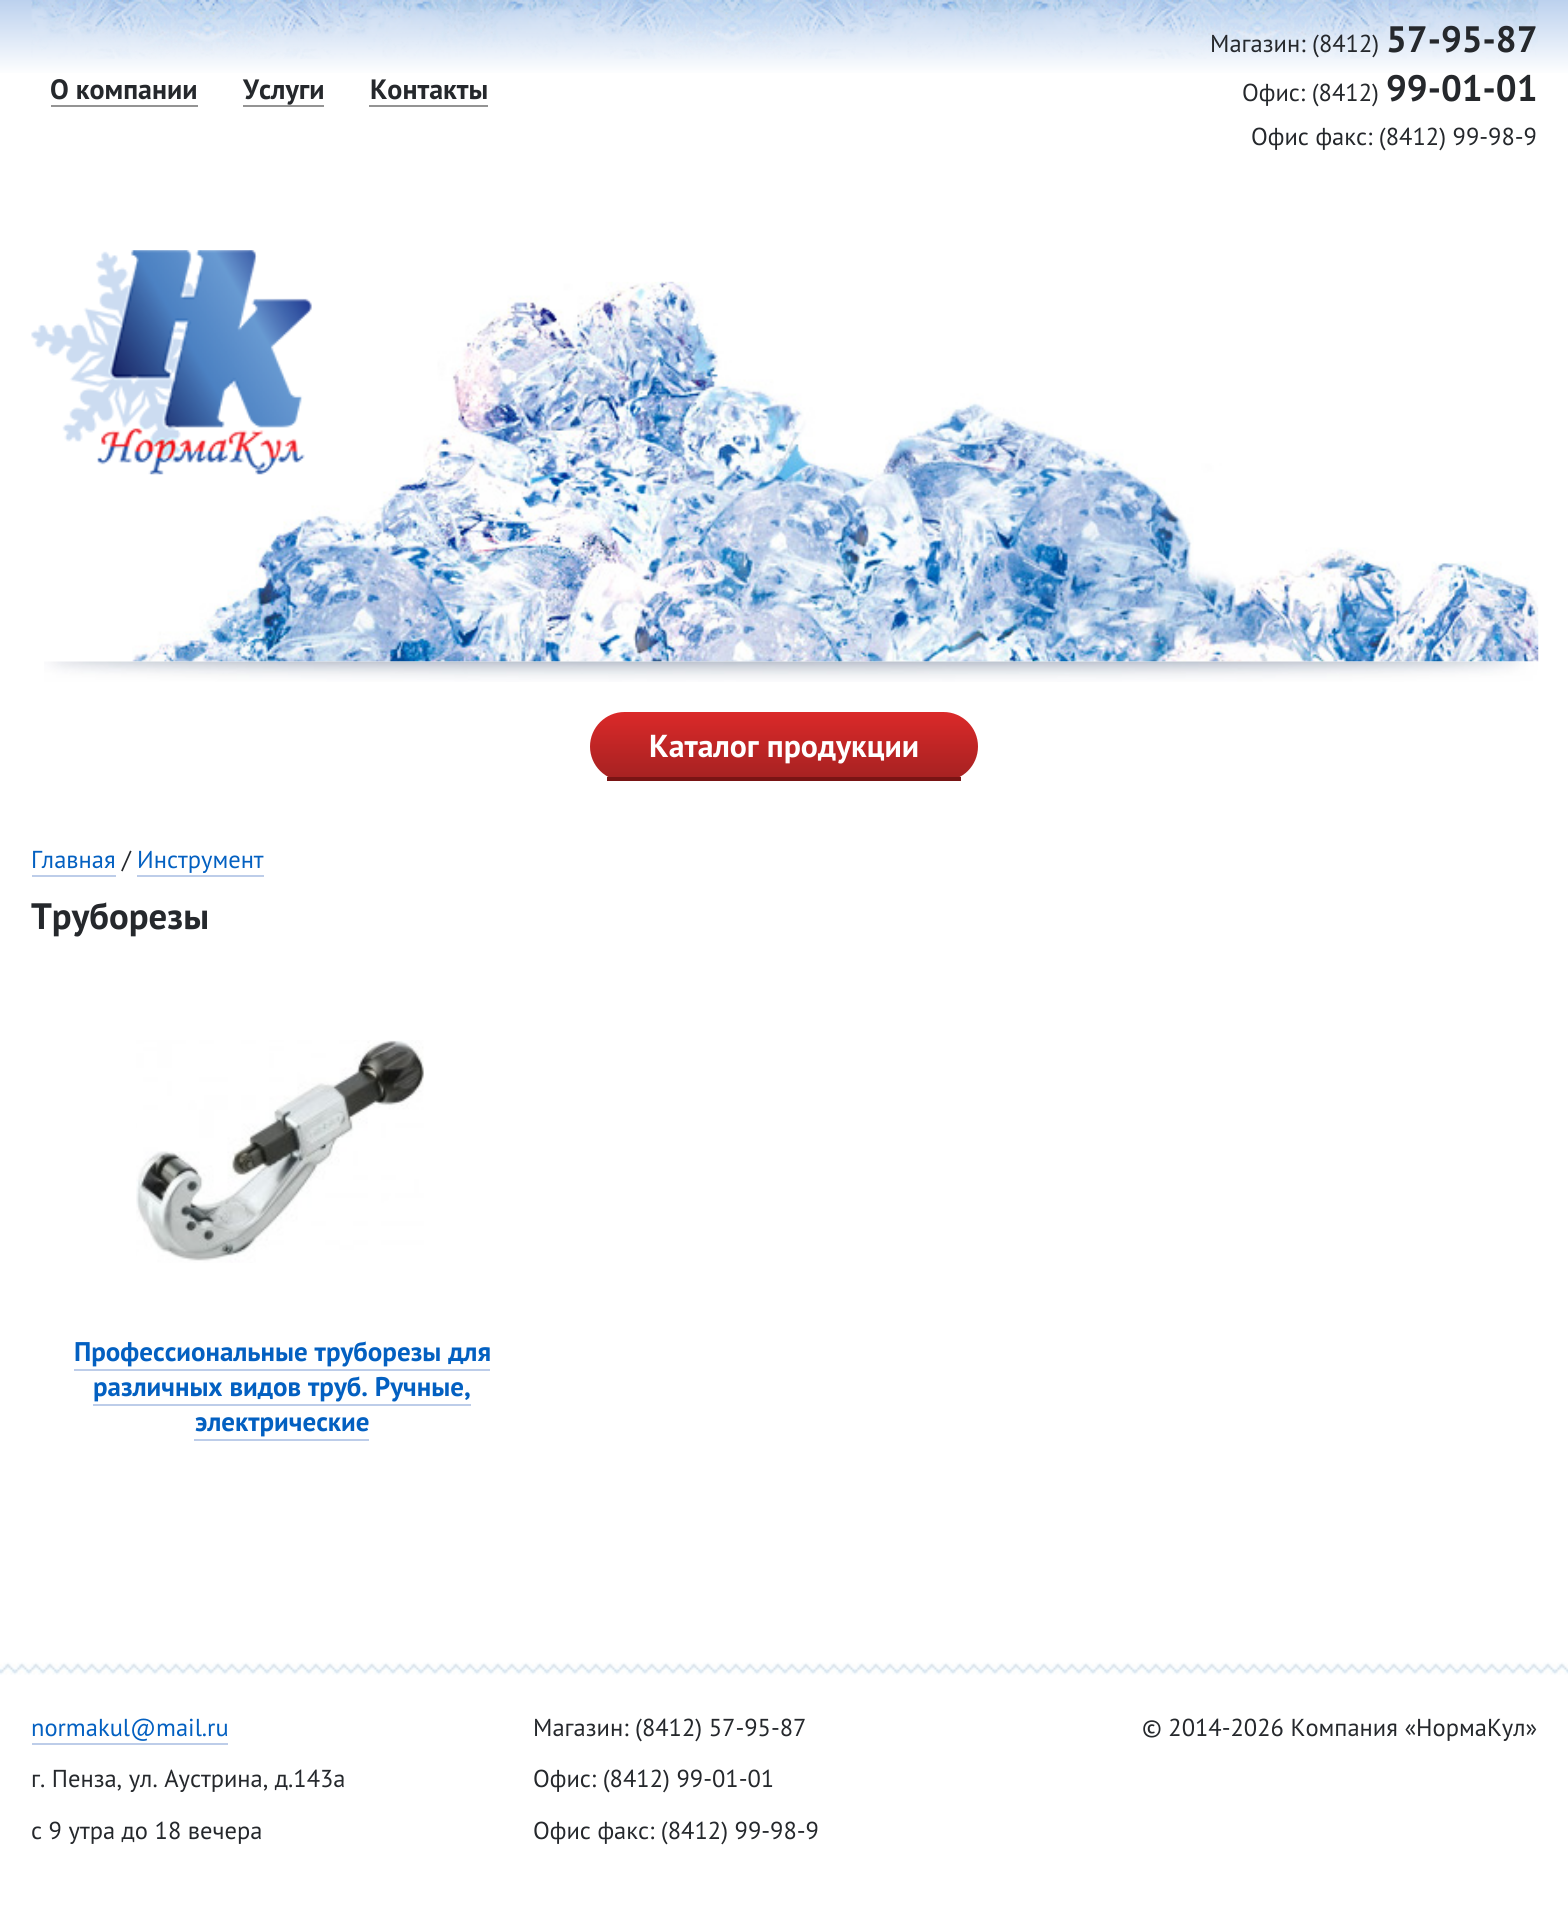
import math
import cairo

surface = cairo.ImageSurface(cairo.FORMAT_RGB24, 1568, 1906)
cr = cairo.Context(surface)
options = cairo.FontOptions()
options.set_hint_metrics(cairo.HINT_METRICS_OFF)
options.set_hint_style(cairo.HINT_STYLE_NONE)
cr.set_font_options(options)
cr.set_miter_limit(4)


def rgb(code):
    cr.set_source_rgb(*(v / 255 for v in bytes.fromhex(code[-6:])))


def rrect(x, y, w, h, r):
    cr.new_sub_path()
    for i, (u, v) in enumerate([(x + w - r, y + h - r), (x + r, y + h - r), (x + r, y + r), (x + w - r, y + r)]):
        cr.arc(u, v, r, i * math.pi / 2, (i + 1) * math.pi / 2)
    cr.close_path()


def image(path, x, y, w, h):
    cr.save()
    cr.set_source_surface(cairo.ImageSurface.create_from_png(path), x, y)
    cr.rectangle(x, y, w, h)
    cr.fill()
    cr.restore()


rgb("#ffffff")
cr.paint()
gradient = cairo.LinearGradient(784, 0, 784, 98)
gradient.add_color_stop_rgba(0, 0.737, 0.82, 0.933, 1)
gradient.add_color_stop_rgba(0.77, 1, 1, 1, 1)
gradient.add_color_stop_rgba(1, 1, 1, 1, 1)
cr.set_source(gradient)
cr.rectangle(0, 0, 1568, 73)
cr.fill()
image("img/1.png", 132, 281, 1407, 381)
image("img/2.png", 31, 0, 1508, 59)
for x, y, w, h, color in [
    (51, 105, 147, 2, "#949494"),
    (243, 105, 81, 2, "#949494"),
    (369, 105, 119, 2, "#949494"),
]:
    rgb(color)
    cr.rectangle(x, y, w, h)
    cr.fill()
image("img/3.png", 31, 250, 281, 225)
image("img/4.png", 44, 661, 1494, 21)
cr.save()
rrect(590, 712, 388, 69, 34.5)
cr.clip()
gradient = cairo.LinearGradient(784, 712, 784, 777)
gradient.add_color_stop_rgba(0, 0.859, 0.161, 0.161, 1)
gradient.add_color_stop_rgba(1, 0.655, 0.133, 0.133, 1)
cr.set_source(gradient)
cr.new_path()
cr.move_to(624.5, 712)
cr.line_to(943.5, 712)
cr.curve_to(962.5, 712, 978, 727.5, 978, 746.5)
cr.line_to(978, 777)
cr.line_to(590, 777)
cr.line_to(590, 746.5)
cr.curve_to(590, 727.5, 605.5, 712, 624.5, 712)
cr.close_path()
cr.fill()
cr.restore()
for x, y, w, h, color in [
    (607, 777, 354, 4, "#791414"),
    (32, 875, 84, 2, "#bdcde9"),
    (137, 875, 127, 2, "#bdcde9"),
]:
    rgb(color)
    cr.rectangle(x, y, w, h)
    cr.fill()
image("img/5.png", 136, 1040, 288, 223)
for x, y, w, h, color in [
    (74, 1369, 416, 2, "#bdcde9"),
    (93, 1404, 378, 2, "#bdcde9"),
    (194, 1439, 175, 2, "#bdcde9"),
]:
    rgb(color)
    cr.rectangle(x, y, w, h)
    cr.fill()
image("img/6.png", 0, 1662, 1568, 13)
cr.rectangle(32, 1743, 196, 2)
cr.fill()
cr.select_font_face("PT Sans", cairo.FONT_SLANT_NORMAL, cairo.FONT_WEIGHT_BOLD)
cr.set_font_size(28)
rgb("#25282c")
for x, y, s in [
    (50, 99, "О компании"),
    (243, 99, "Услуги"),
    (370, 99, "Контакты"),
]:
    cr.move_to(x, y)
    cr.show_text(s)
cr.select_font_face("PT Sans")
cr.set_font_size(24.5)
cr.move_to(1210, 52)
cr.show_text("Магазин: (8412)")
cr.select_font_face("PT Sans", cairo.FONT_SLANT_NORMAL, cairo.FONT_WEIGHT_BOLD)
cr.set_font_size(36.75)
cr.move_to(1386, 52)
cr.show_text("57-95-87")
cr.select_font_face("PT Sans")
cr.set_font_size(24.5)
cr.move_to(1242, 101)
cr.show_text("Офис: (8412)")
cr.select_font_face("PT Sans", cairo.FONT_SLANT_NORMAL, cairo.FONT_WEIGHT_BOLD)
cr.set_font_size(36.75)
cr.move_to(1386, 101)
cr.show_text("99-01-01")
cr.select_font_face("PT Sans")
cr.set_font_size(24.5)
cr.move_to(1251, 145)
cr.show_text("Офис факс: (8412) 99-98-9")
cr.select_font_face("PT Sans", cairo.FONT_SLANT_NORMAL, cairo.FONT_WEIGHT_BOLD)
cr.set_font_size(31.75)
rgb("#ffffff")
cr.move_to(649, 757)
cr.show_text("Каталог продукции")
cr.select_font_face("PT Sans")
cr.set_font_size(24.5)
rgb("#0360c1")
cr.move_to(31, 868)
cr.show_text("Главная")
rgb("#25282c")
cr.move_to(122, 868)
cr.show_text("/")
rgb("#0360c1")
cr.move_to(137, 868)
cr.show_text("Инструмент")
cr.select_font_face("PT Sans", cairo.FONT_SLANT_NORMAL, cairo.FONT_WEIGHT_BOLD)
cr.set_font_size(36.75)
rgb("#25282c")
cr.move_to(31, 929)
cr.show_text("Труборезы")
cr.set_font_size(27)
rgb("#0360c1")
for x, y, s in [
    (74, 1361, "Профессиональные труборезы для"),
    (93, 1396, "различных видов труб. Ручные,"),
    (195, 1431, "электрические"),
]:
    cr.move_to(x, y)
    cr.show_text(s)
cr.select_font_face("PT Sans")
cr.set_font_size(24.5)
cr.move_to(31, 1736)
cr.show_text("normakul@mail.ru")
rgb("#25282c")
for x, y, s in [
    (31, 1787, "г. Пенза, ул. Аустрина, д.143а"),
    (31, 1839, "с 9 утра до 18 вечера"),
    (533, 1736, "Магазин: (8412) 57-95-87"),
    (533, 1787, "Офис: (8412) 99-01-01"),
    (533, 1839, "Офис факс: (8412) 99-98-9"),
    (1142, 1736, "© 2014-2026 Компания «НормаКул»"),
]:
    cr.move_to(x, y)
    cr.show_text(s)
surface.write_to_png("page.png")
